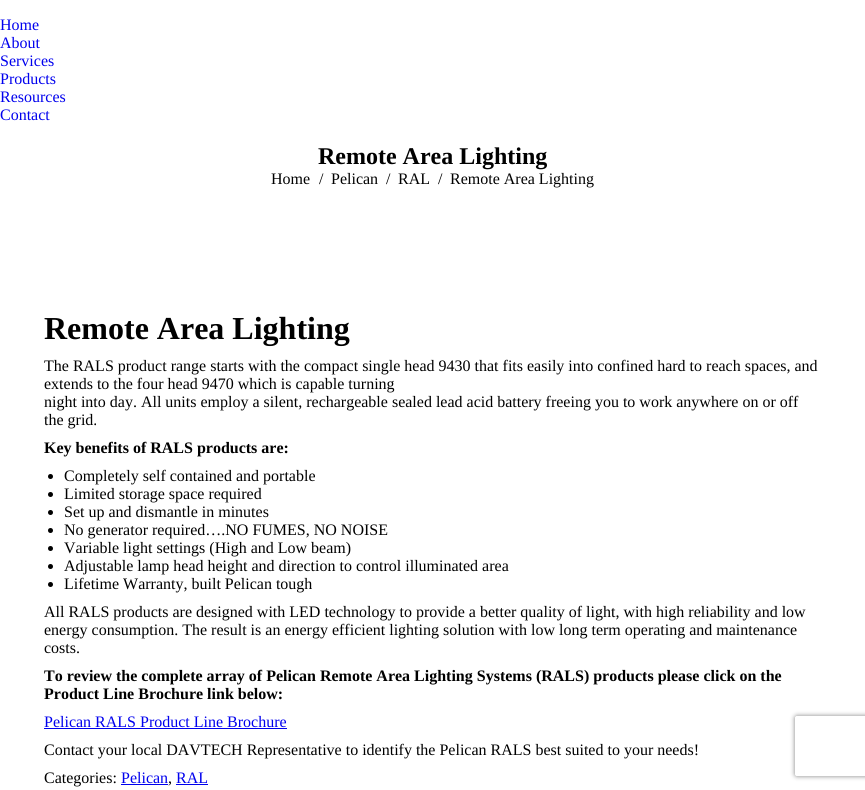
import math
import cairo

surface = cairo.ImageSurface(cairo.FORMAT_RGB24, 865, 790)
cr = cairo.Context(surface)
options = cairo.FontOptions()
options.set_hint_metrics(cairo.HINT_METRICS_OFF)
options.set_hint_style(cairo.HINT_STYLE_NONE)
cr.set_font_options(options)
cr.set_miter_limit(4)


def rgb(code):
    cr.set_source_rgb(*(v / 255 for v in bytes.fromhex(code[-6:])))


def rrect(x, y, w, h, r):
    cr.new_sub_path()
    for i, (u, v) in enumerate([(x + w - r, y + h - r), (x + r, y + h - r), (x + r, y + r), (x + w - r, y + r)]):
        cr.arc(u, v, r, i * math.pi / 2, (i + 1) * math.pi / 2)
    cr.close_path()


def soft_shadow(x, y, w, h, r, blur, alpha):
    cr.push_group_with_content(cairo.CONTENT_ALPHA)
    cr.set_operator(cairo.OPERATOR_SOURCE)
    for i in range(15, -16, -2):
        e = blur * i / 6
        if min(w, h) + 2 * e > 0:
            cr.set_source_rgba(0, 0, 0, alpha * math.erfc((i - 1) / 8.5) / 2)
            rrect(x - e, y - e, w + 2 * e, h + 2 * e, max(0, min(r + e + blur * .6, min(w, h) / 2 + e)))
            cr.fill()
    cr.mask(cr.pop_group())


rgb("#ffffff")
cr.paint()
rgb("#000000")
cr.arc(50.5, 476.5, 2.5, 0, 2 * math.pi)
cr.fill()
cr.arc(50.5, 494.5, 2.5, 0, 2 * math.pi)
cr.fill()
cr.arc(50.5, 512.5, 2.5, 0, 2 * math.pi)
cr.fill()
cr.arc(50.5, 530.5, 2.5, 0, 2 * math.pi)
cr.fill()
cr.arc(50.5, 548.5, 2.5, 0, 2 * math.pi)
cr.fill()
cr.arc(50.5, 566.5, 2.5, 0, 2 * math.pi)
cr.fill()
cr.arc(50.5, 584.5, 2.5, 0, 2 * math.pi)
cr.fill()
for x, y, w, h, color in [
    (44, 728, 243, 1, "#0000ee"),
    (121, 784, 47, 1, "#0000ee"),
    (176, 784, 32, 1, "#0000ee"),
]:
    rgb(color)
    cr.rectangle(x, y, w, h)
    cr.fill()
cr.save()
cr.set_fill_rule(cairo.FILL_RULE_EVEN_ODD)
cr.new_path()
cr.move_to(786, 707)
cr.line_to(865, 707)
cr.line_to(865, 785)
cr.line_to(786, 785)
cr.close_path()
cr.move_to(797, 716)
cr.line_to(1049, 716)
cr.curve_to(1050, 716, 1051, 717, 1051, 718)
cr.line_to(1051, 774)
cr.curve_to(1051, 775, 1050, 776, 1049, 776)
cr.line_to(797, 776)
cr.curve_to(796, 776, 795, 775, 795, 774)
cr.line_to(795, 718)
cr.curve_to(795, 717, 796, 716, 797, 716)
cr.close_path()
cr.clip()
rgb("#808080")
soft_shadow(795, 716, 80, 60, 2, 2.5, 1)
cr.restore()
cr.select_font_face("Liberation Serif")
cr.set_font_size(16)
for x, y, s in [
    (0, 30, "Home"),
    (0, 48, "About"),
    (0, 66, "Services"),
    (0, 84, "Products"),
    (0, 102, "Resources"),
    (0, 120, "Contact"),
]:
    cr.move_to(x, y)
    cr.show_text(s)
cr.select_font_face("Liberation Serif", cairo.FONT_SLANT_NORMAL, cairo.FONT_WEIGHT_BOLD)
cr.set_font_size(24)
rgb("#000000")
cr.move_to(318, 164)
cr.show_text("Remote Area Lighting")
cr.select_font_face("Liberation Serif")
cr.set_font_size(16)
for x, y, s in [
    (271, 184, "Home"),
    (319, 184, "/"),
    (331, 184, "Pelican"),
    (386, 184, "/"),
    (398, 184, "RAL"),
    (438, 184, "/"),
    (450, 184, "Remote Area Lighting"),
]:
    cr.move_to(x, y)
    cr.show_text(s)
cr.select_font_face("Liberation Serif", cairo.FONT_SLANT_NORMAL, cairo.FONT_WEIGHT_BOLD)
cr.set_font_size(32)
cr.move_to(44, 339)
cr.show_text("Remote Area Lighting")
cr.select_font_face("Liberation Serif")
cr.set_font_size(16)
for x, y, s in [
    (44, 371, "The RALS product range starts with the compact single head 9430 that fits easily into confined hard to reach spaces, and"),
    (44, 389, "extends to the four head 9470 which is capable turning"),
    (44, 407, "night into day. All units employ a silent, rechargeable sealed lead acid battery freeing you to work anywhere on or off"),
    (44, 425, "the grid."),
]:
    cr.move_to(x, y)
    cr.show_text(s)
cr.select_font_face("Liberation Serif", cairo.FONT_SLANT_NORMAL, cairo.FONT_WEIGHT_BOLD)
cr.move_to(44, 453)
cr.show_text("Key benefits of RALS products are:")
cr.select_font_face("Liberation Serif")
for x, y, s in [
    (64, 481, "Completely self contained and portable"),
    (64, 499, "Limited storage space required"),
    (64, 517, "Set up and dismantle in minutes"),
    (64, 535, "No generator required….NO FUMES, NO NOISE"),
    (64, 553, "Variable light settings (High and Low beam)"),
    (64, 571, "Adjustable lamp head height and direction to control illuminated area"),
    (64, 589, "Lifetime Warranty, built Pelican tough"),
    (44, 617, "All RALS products are designed with LED technology to provide a better quality of light, with high reliability and low"),
    (44, 635, "energy consumption. The result is an energy efficient lighting solution with low long term operating and maintenance"),
    (44, 653, "costs."),
]:
    cr.move_to(x, y)
    cr.show_text(s)
cr.select_font_face("Liberation Serif", cairo.FONT_SLANT_NORMAL, cairo.FONT_WEIGHT_BOLD)
cr.move_to(44, 681)
cr.show_text("To review the complete array of Pelican Remote Area Lighting Systems (RALS) products please click on the")
cr.move_to(44, 699)
cr.show_text("Product Line Brochure link below:")
cr.select_font_face("Liberation Serif")
rgb("#0000ee")
cr.move_to(44, 727)
cr.show_text("Pelican RALS Product Line Brochure")
rgb("#000000")
cr.move_to(44, 755)
cr.show_text("Contact your local DAVTECH Representative to identify the Pelican RALS best suited to your needs!")
cr.move_to(44, 783)
cr.show_text("Categories:")
rgb("#0000ee")
cr.move_to(121, 783)
cr.show_text("Pelican")
cr.move_to(176, 783)
cr.show_text("RAL")
rgb("#000000")
cr.move_to(168, 783)
cr.show_text(",")
surface.write_to_png("page.png")
